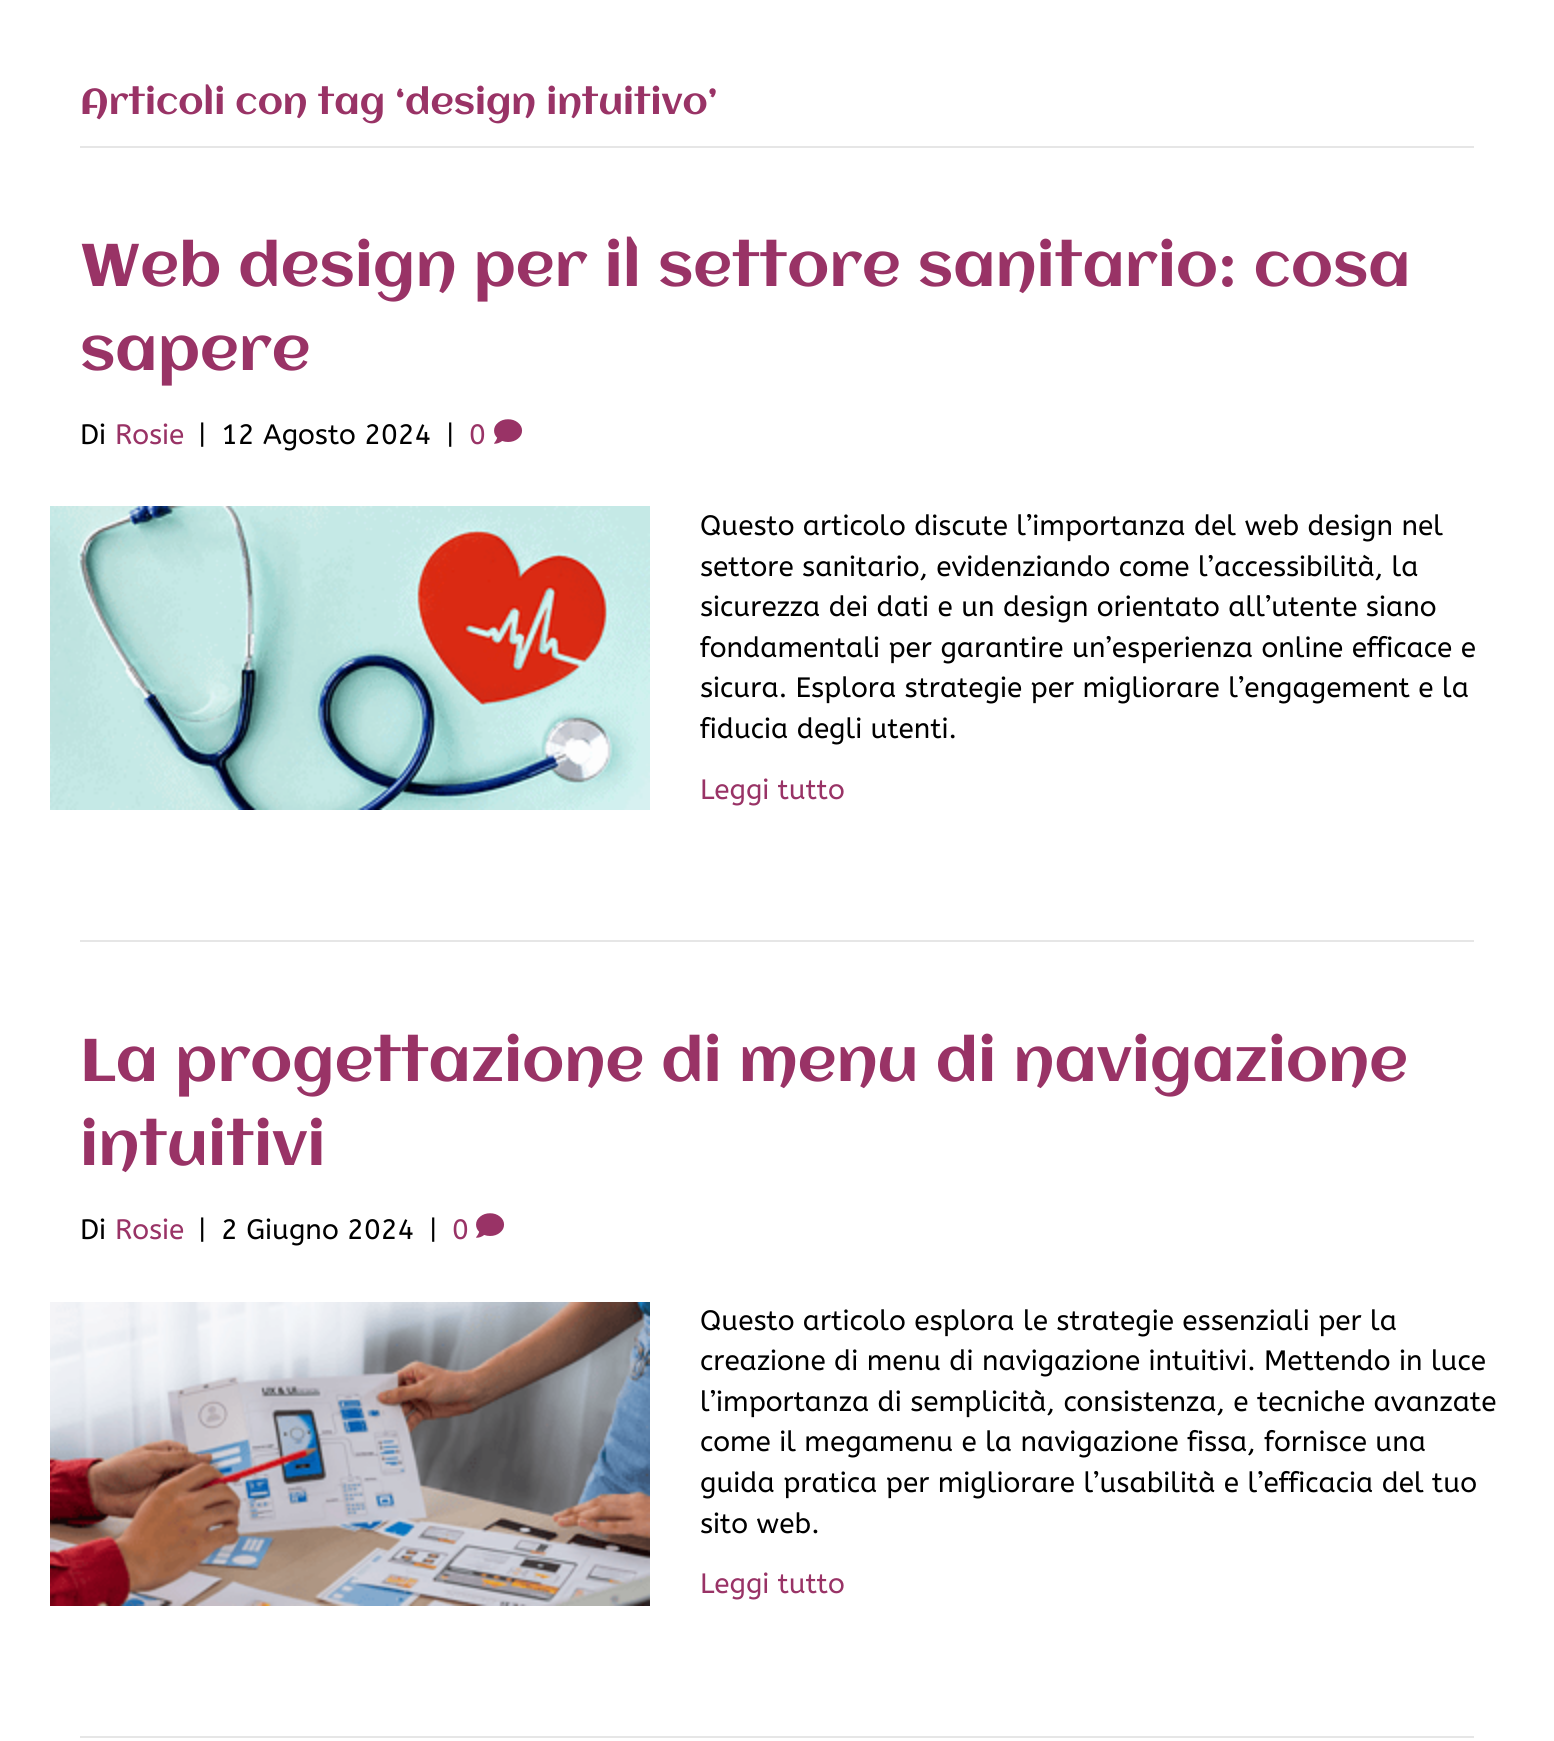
import math
import cairo

surface = cairo.ImageSurface(cairo.FORMAT_RGB24, 1554, 1741)
cr = cairo.Context(surface)
options = cairo.FontOptions()
options.set_hint_metrics(cairo.HINT_METRICS_OFF)
options.set_hint_style(cairo.HINT_STYLE_NONE)
cr.set_font_options(options)
cr.set_miter_limit(4)


def rgb(code):
    cr.set_source_rgb(*(v / 255 for v in bytes.fromhex(code[-6:])))


def image(path, x, y, w, h):
    cr.save()
    cr.set_source_surface(cairo.ImageSurface.create_from_png(path), x, y)
    cr.rectangle(x, y, w, h)
    cr.fill()
    cr.restore()


rgb("#ffffff")
cr.paint()
rgb("#e6e6e6")
cr.rectangle(80, 146, 1394, 2)
cr.fill()
cr.rectangle(80, 940, 1394, 2)
cr.fill()
image("img/1.png", 494, 419, 29, 25)
image("img/2.png", 50, 506, 600, 304)
cr.rectangle(80, 1736, 1394, 2)
cr.fill()
image("img/1.png", 476, 1213, 29, 25)
image("img/3.png", 50, 1302, 600, 304)
cr.select_font_face("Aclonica")
cr.set_font_size(36)
rgb("#993366")
cr.move_to(80, 114)
cr.show_text("Articoli con tag ‘design intuitivo’")
cr.set_font_size(60)
cr.move_to(80, 286)
cr.show_text("Web design per il settore sanitario: cosa")
cr.move_to(80, 370)
cr.show_text("sapere")
cr.select_font_face("ABeeZee")
cr.set_font_size(28)
rgb("#000000")
cr.move_to(80, 444)
cr.show_text("Di")
rgb("#993366")
cr.move_to(115, 444)
cr.show_text("Rosie")
rgb("#000000")
for x, y, s in [
    (198, 444, "|"),
    (221, 444, "12 Agosto 2024"),
    (446, 444, "|"),
]:
    cr.move_to(x, y)
    cr.show_text(s)
rgb("#993366")
cr.move_to(469, 444)
cr.show_text("0")
rgb("#000000")
for x, y, s in [
    (700, 535, "Questo articolo discute l’importanza del web design nel"),
    (700, 576, "settore sanitario, evidenziando come l’accessibilità, la"),
    (700, 616, "sicurezza dei dati e un design orientato all’utente siano"),
    (700, 657, "fondamentali per garantire un’esperienza online efficace e"),
    (700, 697, "sicura. Esplora strategie per migliorare l’engagement e la"),
    (700, 738, "fiducia degli utenti."),
]:
    cr.move_to(x, y)
    cr.show_text(s)
rgb("#993366")
cr.move_to(700, 799)
cr.show_text("Leggi tutto")
cr.select_font_face("Aclonica")
cr.set_font_size(60)
cr.move_to(80, 1081)
cr.show_text("La progettazione di menu di navigazione")
cr.move_to(80, 1165)
cr.show_text("intuitivi")
cr.select_font_face("ABeeZee")
cr.set_font_size(28)
rgb("#000000")
cr.move_to(80, 1239)
cr.show_text("Di")
rgb("#993366")
cr.move_to(115, 1239)
cr.show_text("Rosie")
rgb("#000000")
for x, y, s in [
    (198, 1239, "|"),
    (221, 1239, "2 Giugno 2024"),
    (429, 1239, "|"),
]:
    cr.move_to(x, y)
    cr.show_text(s)
rgb("#993366")
cr.move_to(452, 1239)
cr.show_text("0")
rgb("#000000")
for x, y, s in [
    (700, 1330, "Questo articolo esplora le strategie essenziali per la"),
    (700, 1370, "creazione di menu di navigazione intuitivi. Mettendo in luce"),
    (700, 1411, "l’importanza di semplicità, consistenza, e tecniche avanzate"),
    (700, 1451, "come il megamenu e la navigazione fissa, fornisce una"),
    (700, 1492, "guida pratica per migliorare l’usabilità e l’efficacia del tuo"),
    (700, 1533, "sito web."),
]:
    cr.move_to(x, y)
    cr.show_text(s)
rgb("#993366")
cr.move_to(700, 1593)
cr.show_text("Leggi tutto")
surface.write_to_png("page.png")
